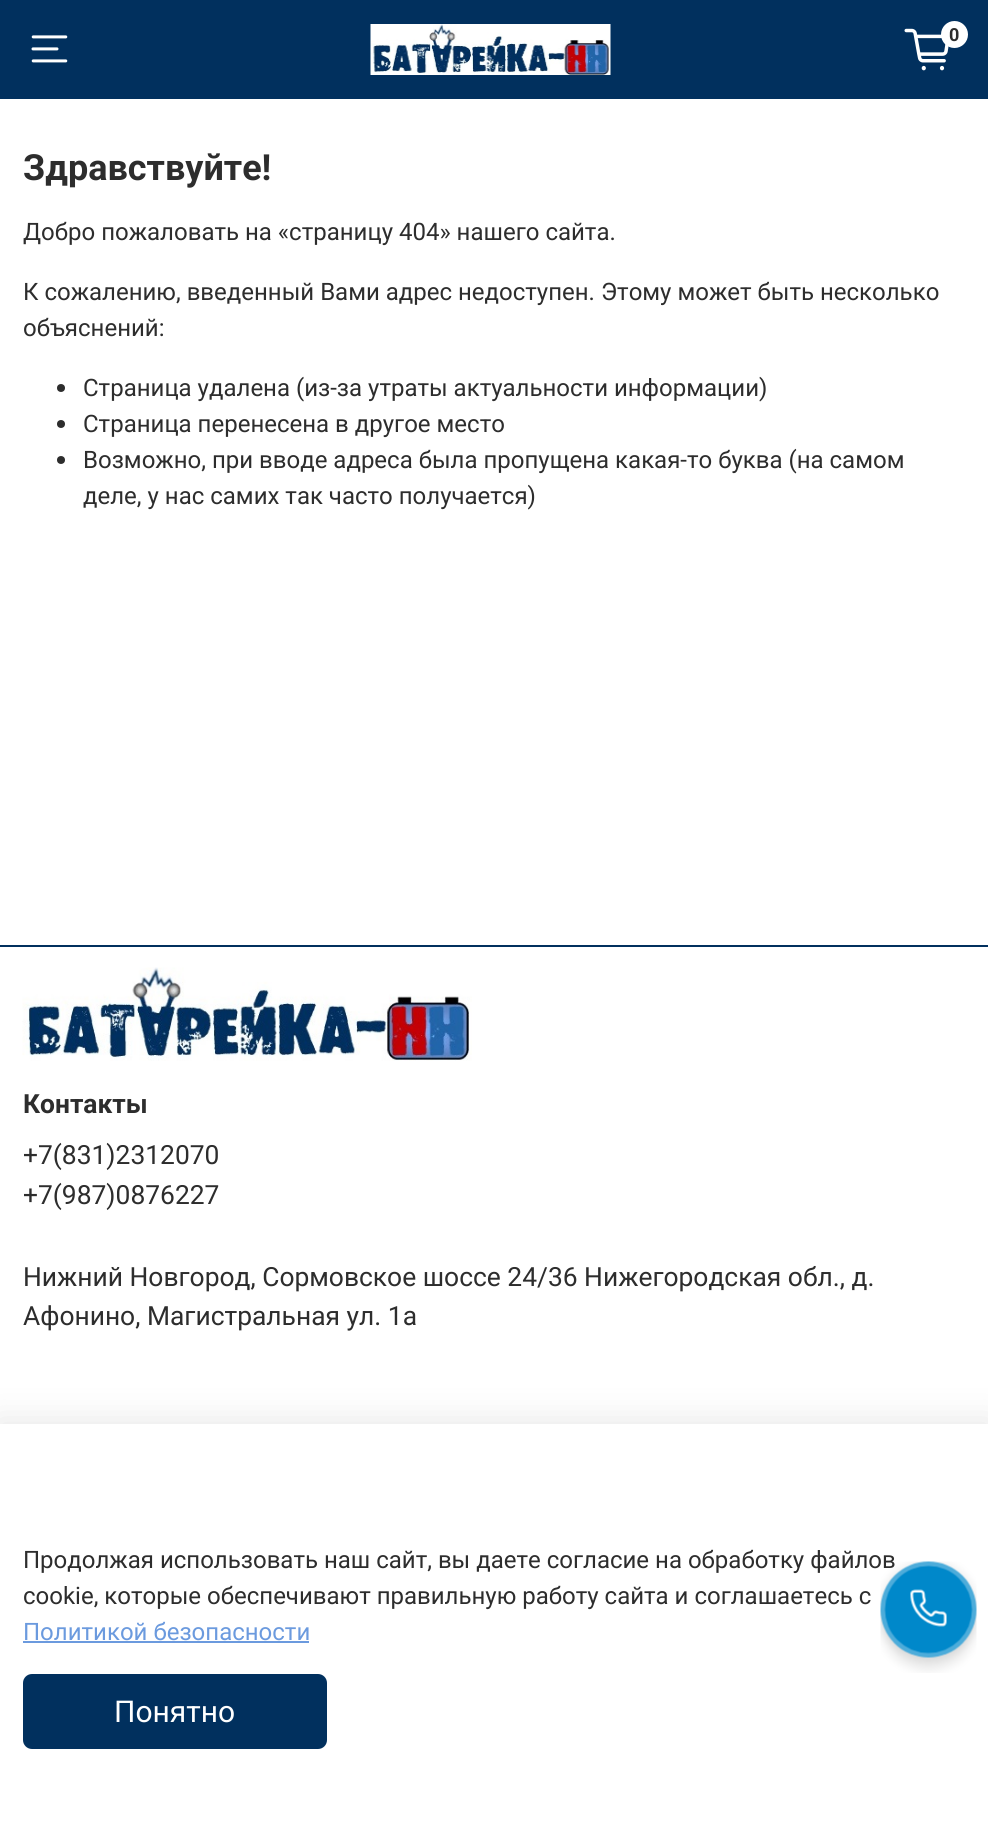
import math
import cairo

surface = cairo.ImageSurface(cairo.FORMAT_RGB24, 988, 1828)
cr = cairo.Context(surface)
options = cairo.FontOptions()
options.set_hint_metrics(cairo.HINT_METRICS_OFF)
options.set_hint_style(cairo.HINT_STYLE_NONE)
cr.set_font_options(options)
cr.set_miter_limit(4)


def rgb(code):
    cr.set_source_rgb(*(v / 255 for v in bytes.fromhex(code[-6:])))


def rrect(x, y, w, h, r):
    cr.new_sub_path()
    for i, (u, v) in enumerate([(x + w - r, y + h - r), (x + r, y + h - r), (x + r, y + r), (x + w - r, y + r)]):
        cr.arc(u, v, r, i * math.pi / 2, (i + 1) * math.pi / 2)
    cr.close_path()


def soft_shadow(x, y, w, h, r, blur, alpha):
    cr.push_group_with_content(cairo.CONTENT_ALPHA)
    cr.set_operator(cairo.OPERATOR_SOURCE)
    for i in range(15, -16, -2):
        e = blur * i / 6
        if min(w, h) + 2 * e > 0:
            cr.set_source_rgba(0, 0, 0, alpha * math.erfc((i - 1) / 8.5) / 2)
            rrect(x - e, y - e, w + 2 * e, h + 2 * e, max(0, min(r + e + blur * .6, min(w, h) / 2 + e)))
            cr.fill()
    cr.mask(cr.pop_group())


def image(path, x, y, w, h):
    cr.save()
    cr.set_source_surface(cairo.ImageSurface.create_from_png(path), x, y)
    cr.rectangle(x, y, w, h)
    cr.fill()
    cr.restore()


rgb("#ffffff")
cr.paint()
rgb("#01305e")
cr.rectangle(0, 0, 988, 99)
cr.fill()
image("img/1.png", 31, 35, 37, 28)
image("img/2.png", 370, 24, 241, 51)
image("img/3.png", 904, 28, 45, 43)
rgb("#ffffff")
cr.arc(954.5, 34.5, 13.5, 0, 2 * math.pi)
cr.fill()
rgb("#2d2d2d")
cr.arc(61, 388, 4, 0, 2 * math.pi)
cr.fill()
cr.arc(61, 424, 4, 0, 2 * math.pi)
cr.fill()
cr.arc(61, 460, 4, 0, 2 * math.pi)
cr.fill()
rgb("#01305e")
cr.rectangle(0, 945, 988, 2)
cr.fill()
image("img/4.png", 22, 967, 450, 94)
rgb("#000000")
soft_shadow(-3, 1419, 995, 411, 0, 17, 0.09)
rgb("#ffffff")
cr.rectangle(0, 1424, 988, 404)
cr.fill()
rgb("#6b9ade")
cr.rectangle(23, 1641, 286, 2)
cr.fill()
rgb("#01305e")
rrect(23, 1674, 304, 75, 9)
cr.fill()
cr.select_font_face("Roboto", cairo.FONT_SLANT_NORMAL, cairo.FONT_WEIGHT_BOLD)
cr.set_font_size(18)
rgb("#2d2d2d")
cr.move_to(949, 41)
cr.show_text("0")
cr.set_font_size(36)
cr.move_to(23, 180)
cr.show_text("Здравствуйте!")
cr.select_font_face("Roboto")
cr.set_font_size(24)
for x, y, s in [
    (23, 240, "Добро пожаловать на «страницу 404» нашего сайта."),
    (23, 300, "К сожалению, введенный Вами адрес недоступен. Этому может быть несколько"),
    (23, 336, "объяснений:"),
    (83, 396, "Страница удалена (из-за утраты актуальности информации)"),
    (83, 432, "Страница перенесена в другое место"),
    (83, 468, "Возможно, при вводе адреса была пропущена какая-то буква (на самом"),
    (83, 504, "деле, у нас самих так часто получается)"),
]:
    cr.move_to(x, y)
    cr.show_text(s)
cr.select_font_face("Roboto", cairo.FONT_SLANT_NORMAL, cairo.FONT_WEIGHT_BOLD)
cr.set_font_size(26.4)
cr.move_to(23, 1113)
cr.show_text("Контакты")
cr.select_font_face("Roboto")
for x, y, s in [
    (23, 1164, "+7(831)2312070"),
    (23, 1204, "+7(987)0876227"),
    (23, 1286, "Нижний Новгород, Сормовское шоссе 24/36 Нижегородская обл., д."),
    (23, 1325, "Афонино, Магистральная ул. 1а"),
]:
    cr.move_to(x, y)
    cr.show_text(s)
cr.set_font_size(24)
cr.move_to(23, 1568)
cr.show_text("Продолжая использовать наш сайт, вы даете согласие на обработку файлов")
cr.move_to(23, 1604)
cr.show_text("cookie, которые обеспечивают правильную работу сайта и соглашаетесь с")
rgb("#6b9ade")
cr.move_to(23, 1640)
cr.show_text("Политикой безопасности")
cr.set_font_size(30)
rgb("#ffffff")
cr.move_to(114, 1722)
cr.show_text("Понятно")
image("img/5.png", 880, 1561, 97, 112)
surface.write_to_png("page.png")
